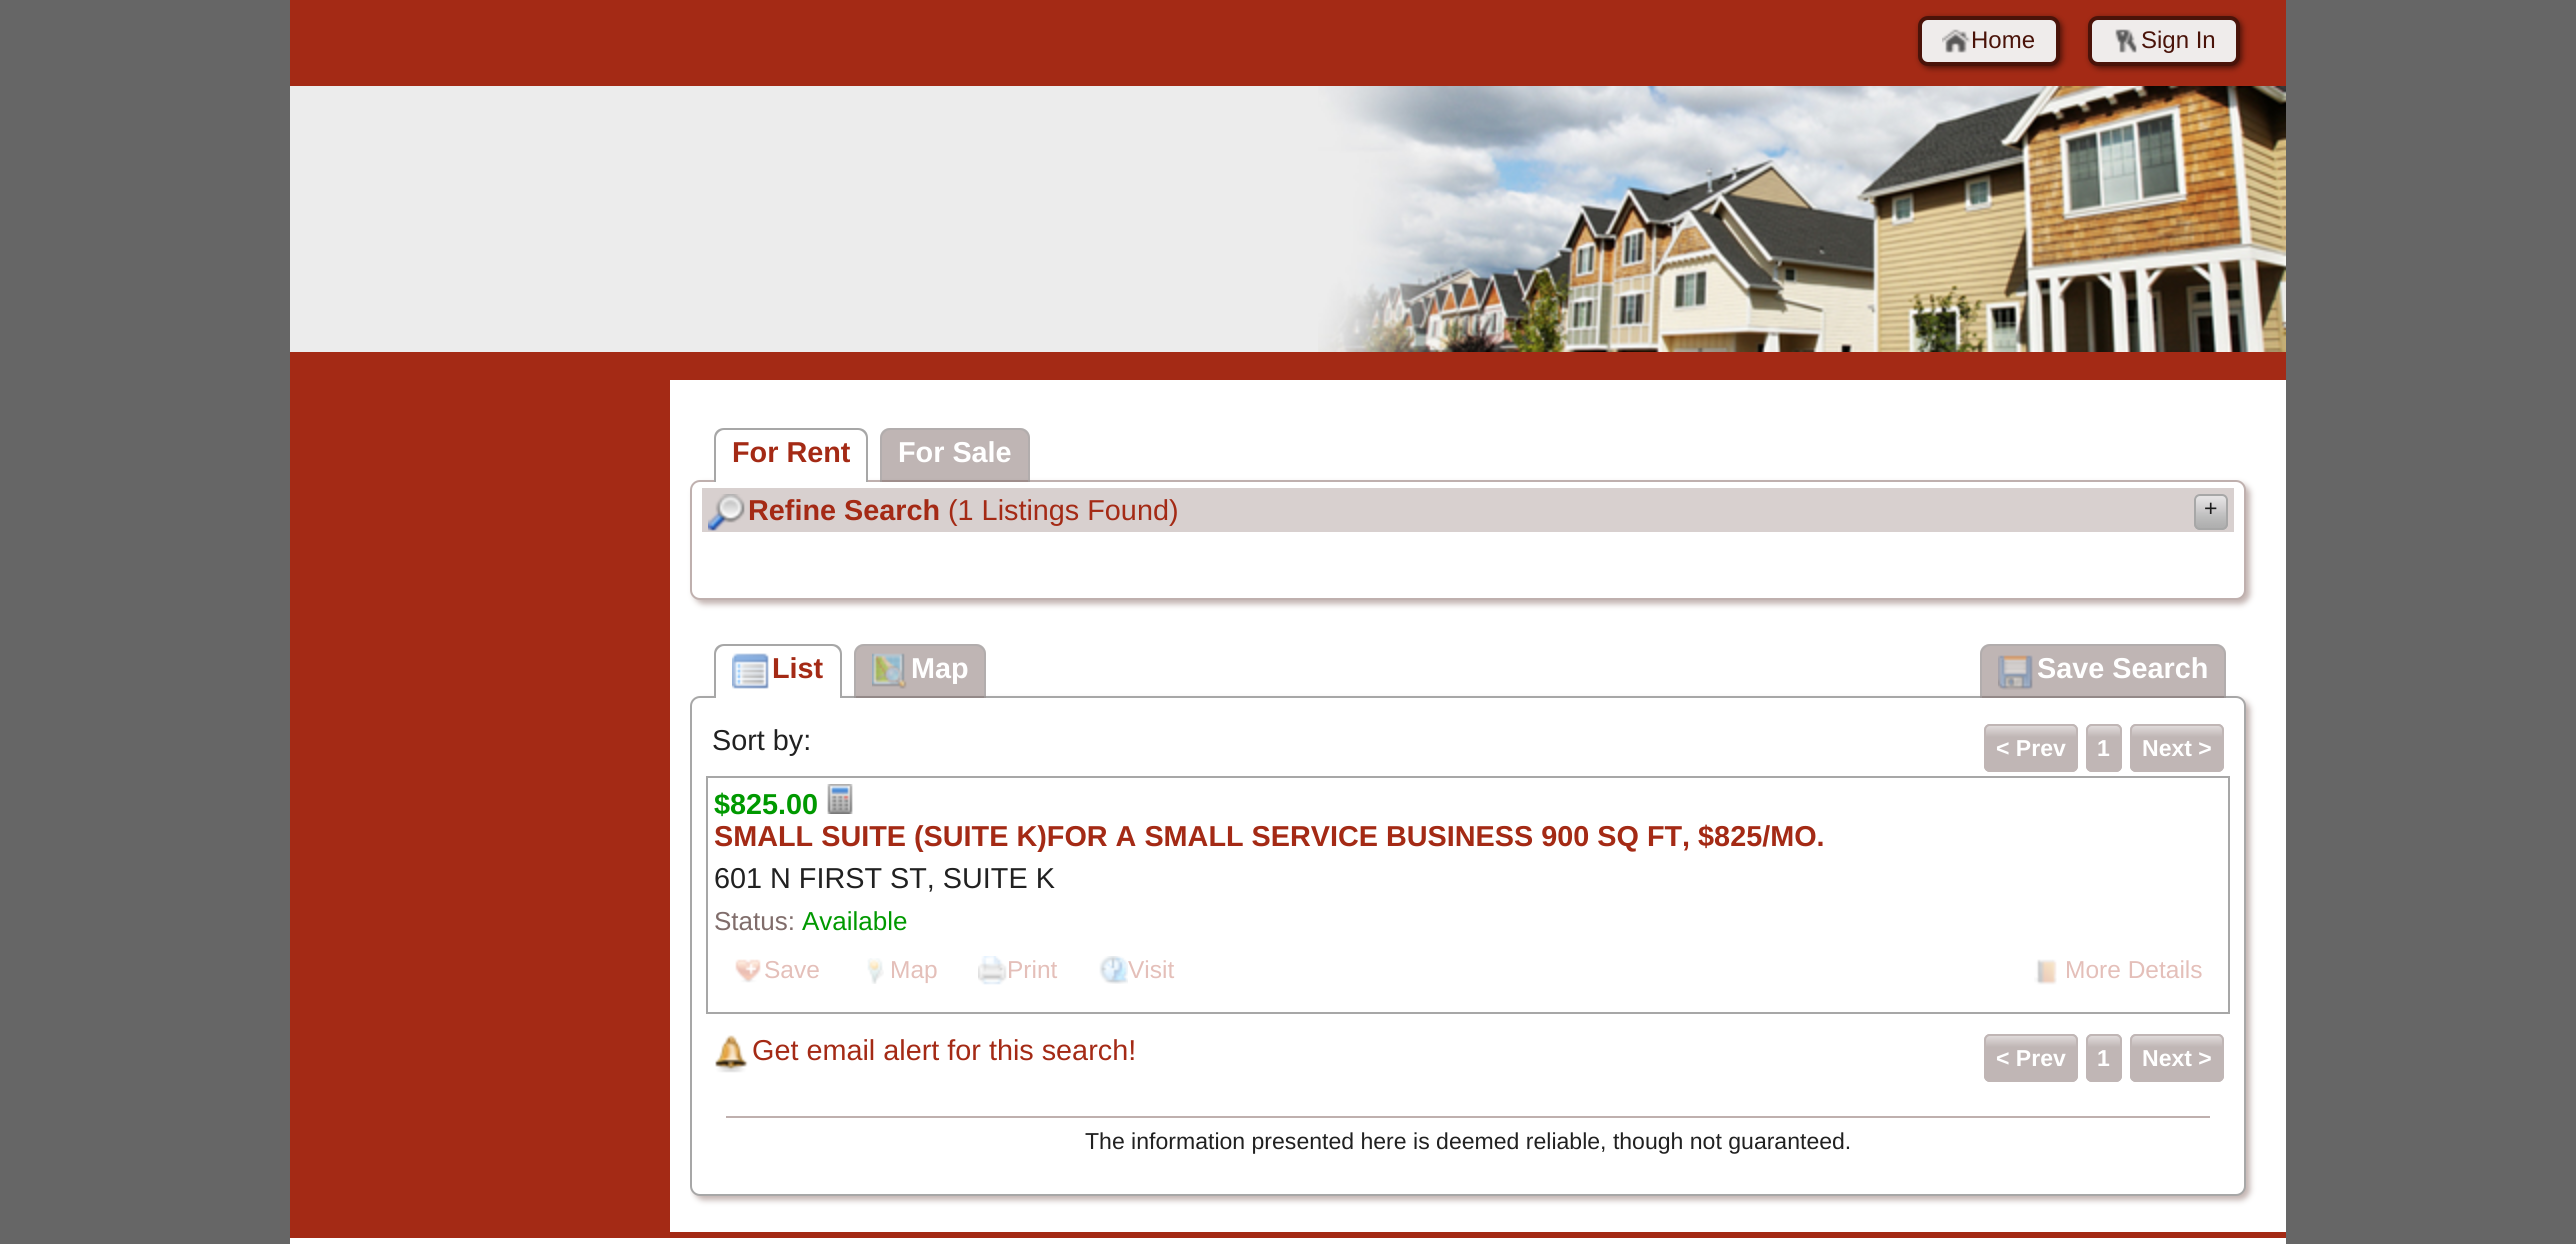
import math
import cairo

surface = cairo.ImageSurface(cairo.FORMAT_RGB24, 2576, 1244)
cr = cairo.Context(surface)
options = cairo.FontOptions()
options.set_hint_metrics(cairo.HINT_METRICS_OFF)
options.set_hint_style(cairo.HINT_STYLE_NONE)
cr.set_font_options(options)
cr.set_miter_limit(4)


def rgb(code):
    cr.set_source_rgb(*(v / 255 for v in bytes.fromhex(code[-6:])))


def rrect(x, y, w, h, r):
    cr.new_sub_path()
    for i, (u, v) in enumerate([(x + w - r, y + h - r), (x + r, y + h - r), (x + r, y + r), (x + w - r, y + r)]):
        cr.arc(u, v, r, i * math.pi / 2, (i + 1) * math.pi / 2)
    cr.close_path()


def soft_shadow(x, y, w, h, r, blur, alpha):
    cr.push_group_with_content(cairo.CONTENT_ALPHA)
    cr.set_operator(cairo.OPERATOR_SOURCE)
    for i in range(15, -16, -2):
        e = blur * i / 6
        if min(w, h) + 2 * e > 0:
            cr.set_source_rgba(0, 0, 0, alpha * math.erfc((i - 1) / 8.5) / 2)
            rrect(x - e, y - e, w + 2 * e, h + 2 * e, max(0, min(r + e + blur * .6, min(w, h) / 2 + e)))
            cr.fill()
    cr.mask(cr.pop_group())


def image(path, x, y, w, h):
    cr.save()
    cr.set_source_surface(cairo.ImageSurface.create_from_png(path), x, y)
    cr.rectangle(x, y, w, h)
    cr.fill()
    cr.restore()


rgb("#666666")
cr.paint()
rgb("#ffffff")
cr.rectangle(290, 380, 1996, 864)
cr.fill()
rgb("#a42a15")
cr.rectangle(290, 0, 1996, 380)
cr.fill()
rgb("#4a1309")
soft_shadow(1920, 18, 142, 50, 10, 3, 1)
rgb("#efeceb")
rrect(1920, 18, 138, 46, 8)
cr.fill_preserve()
rgb("#4a1309")
cr.set_line_width(4)
cr.stroke()
image("img/1.png", 1942, 29, 29, 24)
rgb("#4a1309")
soft_shadow(2090, 18, 152, 50, 10, 3, 1)
rgb("#efeceb")
rrect(2090, 18, 148, 46, 8)
cr.fill_preserve()
rgb("#4a1309")
cr.stroke()
image("img/2.png", 2115, 29, 22, 24)
rgb("#ececec")
cr.rectangle(290, 86, 1028, 266)
cr.fill()
image("img/3.png", 1318, 86, 968, 266)
rgb("#a42a15")
cr.rectangle(290, 380, 380, 852)
cr.fill()
rgb("#c2b3b0")
soft_shadow(694, 484, 1556, 120, 10, 3, 1)
rgb("#ffffff")
rrect(691, 481, 1554, 118, 9)
cr.fill_preserve()
rgb("#bfb0ae")
cr.set_line_width(2)
cr.stroke()
rgb("#ffffff")
cr.new_path()
cr.move_to(724, 428)
cr.line_to(858, 428)
cr.curve_to(863.5, 428, 868, 432.5, 868, 438)
cr.line_to(868, 482)
cr.line_to(714, 482)
cr.line_to(714, 438)
cr.curve_to(714, 432.5, 718.5, 428, 724, 428)
cr.close_path()
cr.fill()
rgb("#a7a7a7")
cr.set_fill_rule(cairo.FILL_RULE_EVEN_ODD)
cr.new_path()
cr.move_to(724, 428)
cr.line_to(858, 428)
cr.curve_to(864, 428, 868, 432, 868, 438)
cr.line_to(868, 482)
cr.line_to(714, 482)
cr.line_to(714, 438)
cr.curve_to(714, 432, 718, 428, 724, 428)
cr.close_path()
cr.move_to(724, 430)
cr.line_to(858, 430)
cr.curve_to(862, 430, 866, 434, 866, 438)
cr.line_to(866, 482)
cr.line_to(716, 482)
cr.line_to(716, 438)
cr.curve_to(716, 434, 720, 430, 724, 430)
cr.close_path()
cr.fill()
cr.set_source_rgba(0.502, 0.427, 0.42, 0.5)
cr.new_path()
cr.move_to(890, 428)
cr.line_to(1020, 428)
cr.curve_to(1025.5, 428, 1030, 432.5, 1030, 438)
cr.line_to(1030, 482)
cr.line_to(880, 482)
cr.line_to(880, 438)
cr.curve_to(880, 432.5, 884.5, 428, 890, 428)
cr.close_path()
cr.fill()
cr.set_source_rgba(0.655, 0.655, 0.655, 0.5)
cr.new_path()
cr.move_to(890, 428)
cr.line_to(1020, 428)
cr.curve_to(1026, 428, 1030, 432, 1030, 438)
cr.line_to(1030, 482)
cr.line_to(880, 482)
cr.line_to(880, 438)
cr.curve_to(880, 432, 884, 428, 890, 428)
cr.close_path()
cr.move_to(890, 430)
cr.line_to(1020, 430)
cr.curve_to(1024, 430, 1028, 434, 1028, 438)
cr.line_to(1028, 482)
cr.line_to(882, 482)
cr.line_to(882, 438)
cr.curve_to(882, 434, 886, 430, 890, 430)
cr.close_path()
cr.fill()
rgb("#d8d0cf")
cr.rectangle(702, 488, 1532, 44)
cr.fill()
image("img/4.png", 708, 494, 37, 37)
image("img/5.png", 2194, 496, 34, 34)
rrect(2195, 495, 32, 34, 5)
rgb("#a7a7a7")
cr.stroke()
cr.save()
cr.set_fill_rule(cairo.FILL_RULE_WINDING)
cr.rectangle(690, 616, 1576, 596)
cr.clip()
rgb("#c2b3b0")
soft_shadow(694, 700, 1556, 500, 10, 3, 1)
cr.restore()
rgb("#ffffff")
rrect(691, 697, 1554, 498, 9)
cr.fill_preserve()
rgb("#a7a7a7")
cr.stroke()
rgb("#ffffff")
cr.new_path()
cr.move_to(724, 644)
cr.line_to(832, 644)
cr.curve_to(837.5, 644, 842, 648.5, 842, 654)
cr.line_to(842, 698)
cr.line_to(714, 698)
cr.line_to(714, 654)
cr.curve_to(714, 648.5, 718.5, 644, 724, 644)
cr.close_path()
cr.fill()
rgb("#a7a7a7")
cr.new_path()
cr.move_to(724, 644)
cr.line_to(832, 644)
cr.curve_to(838, 644, 842, 648, 842, 654)
cr.line_to(842, 698)
cr.line_to(714, 698)
cr.line_to(714, 654)
cr.curve_to(714, 648, 718, 644, 724, 644)
cr.close_path()
cr.move_to(724, 646)
cr.line_to(832, 646)
cr.curve_to(836, 646, 840, 650, 840, 654)
cr.line_to(840, 698)
cr.line_to(716, 698)
cr.line_to(716, 654)
cr.curve_to(716, 650, 720, 646, 724, 646)
cr.close_path()
cr.fill()
image("img/6.png", 732, 653, 37, 36)
cr.set_source_rgba(0.502, 0.427, 0.42, 0.5)
cr.new_path()
cr.move_to(864, 644)
cr.line_to(976, 644)
cr.curve_to(981.5, 644, 986, 648.5, 986, 654)
cr.line_to(986, 698)
cr.line_to(854, 698)
cr.line_to(854, 654)
cr.curve_to(854, 648.5, 858.5, 644, 864, 644)
cr.close_path()
cr.fill()
cr.set_source_rgba(0.655, 0.655, 0.655, 0.5)
cr.new_path()
cr.move_to(864, 644)
cr.line_to(976, 644)
cr.curve_to(982, 644, 986, 648, 986, 654)
cr.line_to(986, 698)
cr.line_to(854, 698)
cr.line_to(854, 654)
cr.curve_to(854, 648, 858, 644, 864, 644)
cr.close_path()
cr.move_to(864, 646)
cr.line_to(976, 646)
cr.curve_to(980, 646, 984, 650, 984, 654)
cr.line_to(984, 698)
cr.line_to(856, 698)
cr.line_to(856, 654)
cr.curve_to(856, 650, 860, 646, 864, 646)
cr.close_path()
cr.fill()
image("img/7.png", 872, 653, 35, 36)
cr.set_source_rgba(0.502, 0.427, 0.42, 0.5)
cr.new_path()
cr.move_to(1990, 644)
cr.line_to(2216, 644)
cr.curve_to(2221.5, 644, 2226, 648.5, 2226, 654)
cr.line_to(2226, 698)
cr.line_to(1980, 698)
cr.line_to(1980, 654)
cr.curve_to(1980, 648.5, 1984.5, 644, 1990, 644)
cr.close_path()
cr.fill()
cr.set_source_rgba(0.655, 0.655, 0.655, 0.5)
cr.new_path()
cr.move_to(1990, 644)
cr.line_to(2216, 644)
cr.curve_to(2222, 644, 2226, 648, 2226, 654)
cr.line_to(2226, 698)
cr.line_to(1980, 698)
cr.line_to(1980, 654)
cr.curve_to(1980, 648, 1984, 644, 1990, 644)
cr.close_path()
cr.move_to(1990, 646)
cr.line_to(2216, 646)
cr.curve_to(2220, 646, 2224, 650, 2224, 654)
cr.line_to(2224, 698)
cr.line_to(1982, 698)
cr.line_to(1982, 654)
cr.curve_to(1982, 650, 1986, 646, 1990, 646)
cr.close_path()
cr.fill()
image("img/8.png", 1998, 655, 35, 35)
rgb("#c0b6b5")
rrect(1984, 724, 94, 48, 6)
cr.fill()
cr.save()
cr.set_fill_rule(cairo.FILL_RULE_WINDING)
rrect(1984, 724, 94, 48, 6)
cr.clip()
gradient = cairo.LinearGradient(2031, 726, 2031, 770)
gradient.add_color_stop_rgba(0, 1, 1, 1, 0.5)
gradient.add_color_stop_rgba(0.25, 1, 1, 1, 0)
cr.set_source(gradient)
cr.rectangle(1984, 726, 94, 11)
cr.fill()
cr.restore()
rrect(1985, 725, 92, 46, 5)
cr.stroke()
rrect(2086, 724, 36, 48, 6)
cr.fill()
cr.save()
cr.set_fill_rule(cairo.FILL_RULE_WINDING)
rrect(2086, 724, 36, 48, 6)
cr.clip()
gradient = cairo.LinearGradient(2104, 726, 2104, 770)
gradient.add_color_stop_rgba(0, 1, 1, 1, 0.5)
gradient.add_color_stop_rgba(0.25, 1, 1, 1, 0)
cr.set_source(gradient)
cr.rectangle(2086, 726, 36, 11)
cr.fill()
cr.restore()
rrect(2087, 725, 34, 46, 5)
cr.stroke()
rrect(2130, 724, 94, 48, 6)
cr.fill()
cr.save()
cr.set_fill_rule(cairo.FILL_RULE_WINDING)
rrect(2130, 724, 94, 48, 6)
cr.clip()
gradient = cairo.LinearGradient(2177, 726, 2177, 770)
gradient.add_color_stop_rgba(0, 1, 1, 1, 0.5)
gradient.add_color_stop_rgba(0.25, 1, 1, 1, 0)
cr.set_source(gradient)
cr.rectangle(2130, 726, 94, 11)
cr.fill()
cr.restore()
rrect(2131, 725, 92, 46, 5)
cr.stroke()
cr.rectangle(707, 777, 1522, 236)
rgb("#a7a7a7")
cr.stroke()
image("img/9.png", 827, 784, 26, 30)
image("img/10.png", 735, 959, 26, 24)
image("img/11.png", 867, 958, 17, 26)
image("img/12.png", 978, 956, 29, 29)
image("img/13.png", 1099, 956, 29, 28)
image("img/14.png", 2034, 959, 23, 26)
image("img/15.png", 715, 1035, 33, 38)
rgb("#c0b6b5")
rrect(1984, 1034, 94, 48, 6)
cr.fill()
cr.save()
cr.set_fill_rule(cairo.FILL_RULE_WINDING)
rrect(1984, 1034, 94, 48, 6)
cr.clip()
gradient = cairo.LinearGradient(2031, 1036, 2031, 1080)
gradient.add_color_stop_rgba(0, 1, 1, 1, 0.5)
gradient.add_color_stop_rgba(0.25, 1, 1, 1, 0)
cr.set_source(gradient)
cr.rectangle(1984, 1036, 94, 11)
cr.fill()
cr.restore()
rrect(1985, 1035, 92, 46, 5)
cr.stroke()
rrect(2086, 1034, 36, 48, 6)
cr.fill()
cr.save()
cr.set_fill_rule(cairo.FILL_RULE_WINDING)
rrect(2086, 1034, 36, 48, 6)
cr.clip()
gradient = cairo.LinearGradient(2104, 1036, 2104, 1080)
gradient.add_color_stop_rgba(0, 1, 1, 1, 0.5)
gradient.add_color_stop_rgba(0.25, 1, 1, 1, 0)
cr.set_source(gradient)
cr.rectangle(2086, 1036, 36, 11)
cr.fill()
cr.restore()
rrect(2087, 1035, 34, 46, 5)
cr.stroke()
rrect(2130, 1034, 94, 48, 6)
cr.fill()
cr.save()
cr.set_fill_rule(cairo.FILL_RULE_WINDING)
rrect(2130, 1034, 94, 48, 6)
cr.clip()
gradient = cairo.LinearGradient(2177, 1036, 2177, 1080)
gradient.add_color_stop_rgba(0, 1, 1, 1, 0.5)
gradient.add_color_stop_rgba(0.25, 1, 1, 1, 0)
cr.set_source(gradient)
cr.rectangle(2130, 1036, 94, 11)
cr.fill()
cr.restore()
rrect(2131, 1035, 92, 46, 5)
cr.stroke()
rgb("#bfb0ae")
cr.rectangle(726, 1116, 1484, 2)
cr.fill()
rgb("#a42a15")
cr.rectangle(290, 1232, 1996, 6)
cr.fill()
cr.select_font_face("Liberation Sans")
cr.set_font_size(24)
rgb("#4a1309")
cr.move_to(1971, 48)
cr.show_text("Home")
cr.move_to(2141, 48)
cr.show_text("Sign In")
cr.select_font_face("Liberation Sans", cairo.FONT_SLANT_NORMAL, cairo.FONT_WEIGHT_BOLD)
cr.set_font_size(28.8)
rgb("#a42a15")
cr.move_to(732, 462)
cr.show_text("For Rent")
rgb("#ffffff")
cr.move_to(898, 462)
cr.show_text("For Sale")
rgb("#a42a15")
cr.move_to(748, 520)
cr.show_text("Refine Search")
cr.select_font_face("Liberation Sans")
cr.move_to(948, 520)
cr.show_text("(1 Listings Found)")
cr.set_font_size(23.05)
rgb("#1b1b1b")
cr.move_to(2204, 516)
cr.show_text("+")
cr.select_font_face("Liberation Sans", cairo.FONT_SLANT_NORMAL, cairo.FONT_WEIGHT_BOLD)
cr.set_font_size(28.8)
rgb("#a42a15")
cr.move_to(772, 678)
cr.show_text("List")
rgb("#ffffff")
cr.move_to(911, 678)
cr.show_text("Map")
cr.move_to(2037, 678)
cr.show_text("Save Search")
cr.select_font_face("Liberation Sans")
rgb("#212121")
cr.move_to(712, 750)
cr.show_text("Sort by:")
cr.select_font_face("Liberation Sans", cairo.FONT_SLANT_NORMAL, cairo.FONT_WEIGHT_BOLD)
cr.set_font_size(23.05)
rgb("#ffffff")
for x, y, s in [
    (1996, 756, "< Prev"),
    (2097, 756, "1"),
    (2142, 756, "Next >"),
]:
    cr.move_to(x, y)
    cr.show_text(s)
cr.set_font_size(28.8)
rgb("#009900")
cr.move_to(714, 814)
cr.show_text("$825.00")
rgb("#a42a15")
cr.move_to(714, 846)
cr.show_text("SMALL SUITE (SUITE K)FOR A SMALL SERVICE BUSINESS 900 SQ FT, $825/MO.")
cr.select_font_face("Liberation Sans")
rgb("#212121")
cr.move_to(714, 888)
cr.show_text("601 N FIRST ST, SUITE K")
cr.set_font_size(26)
rgb("#806d6b")
cr.move_to(714, 930)
cr.show_text("Status:")
rgb("#009900")
cr.move_to(802, 930)
cr.show_text("Available")
cr.set_font_size(24.5)
rgb("#e4bfb9")
for x, y, s in [
    (764, 978, "Save"),
    (890, 978, "Map"),
    (1007, 978, "Print"),
    (1128, 978, "Visit"),
    (2065, 978, "More Details"),
]:
    cr.move_to(x, y)
    cr.show_text(s)
cr.set_font_size(28.8)
rgb("#a42a15")
cr.move_to(752, 1060)
cr.show_text("Get email alert for this search!")
cr.select_font_face("Liberation Sans", cairo.FONT_SLANT_NORMAL, cairo.FONT_WEIGHT_BOLD)
cr.set_font_size(23.05)
rgb("#ffffff")
for x, y, s in [
    (1996, 1066, "< Prev"),
    (2097, 1066, "1"),
    (2142, 1066, "Next >"),
]:
    cr.move_to(x, y)
    cr.show_text(s)
cr.select_font_face("Liberation Sans")
rgb("#212121")
cr.move_to(1085, 1149)
cr.show_text("The information presented here is deemed reliable, though not guaranteed.")
surface.write_to_png("page.png")
